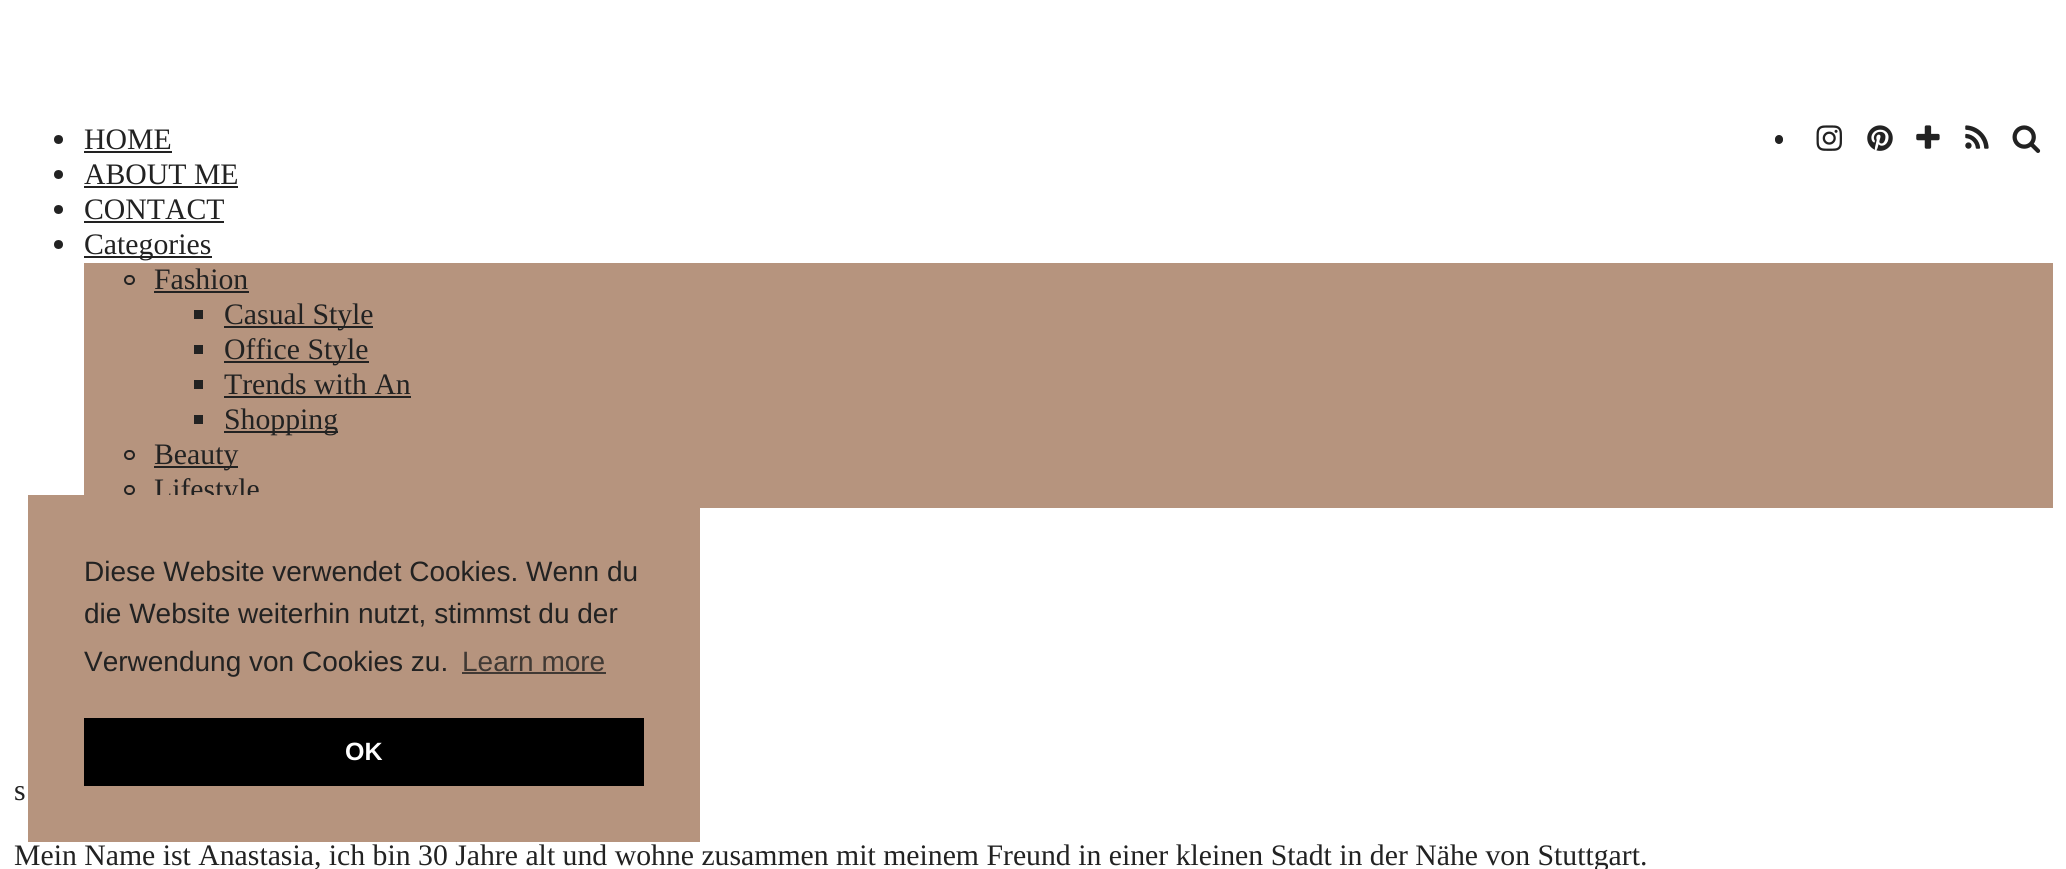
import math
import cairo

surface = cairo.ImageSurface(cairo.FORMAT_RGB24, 2066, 869)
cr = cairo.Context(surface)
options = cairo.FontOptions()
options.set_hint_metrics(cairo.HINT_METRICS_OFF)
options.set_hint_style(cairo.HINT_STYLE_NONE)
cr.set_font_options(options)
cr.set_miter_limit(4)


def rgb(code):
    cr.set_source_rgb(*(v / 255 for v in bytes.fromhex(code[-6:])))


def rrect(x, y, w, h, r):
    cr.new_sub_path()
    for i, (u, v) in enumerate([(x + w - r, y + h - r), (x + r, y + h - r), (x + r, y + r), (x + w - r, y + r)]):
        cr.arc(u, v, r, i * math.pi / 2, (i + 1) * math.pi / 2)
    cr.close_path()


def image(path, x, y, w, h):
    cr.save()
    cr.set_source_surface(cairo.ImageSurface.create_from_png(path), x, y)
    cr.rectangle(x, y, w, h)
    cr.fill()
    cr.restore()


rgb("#ffffff")
cr.paint()
rgb("#222222")
cr.arc(58.5, 139.5, 4.5, 0, 2 * math.pi)
cr.fill()
cr.rectangle(84, 151, 88, 2)
cr.fill()
cr.arc(58.5, 174.5, 4.5, 0, 2 * math.pi)
cr.fill()
cr.rectangle(84, 186, 154, 2)
cr.fill()
cr.arc(58.5, 209.5, 4.5, 0, 2 * math.pi)
cr.fill()
cr.rectangle(84, 221, 140, 2)
cr.fill()
cr.arc(58.5, 244.5, 4.5, 0, 2 * math.pi)
cr.fill()
cr.rectangle(84, 256, 128, 2)
cr.fill()
rgb("#b6947e")
cr.rectangle(84, 263, 1969, 245)
cr.fill()
rrect(125, 276, 9, 8, 4)
rgb("#222222")
cr.stroke()
for x, y, w, h, color in [
    (154, 291, 95, 2, "#222222"),
    (194, 310, 9, 9, "#222222"),
    (224, 326, 149, 2, "#222222"),
    (194, 345, 9, 9, "#222222"),
    (224, 361, 145, 2, "#222222"),
    (194, 380, 9, 9, "#222222"),
    (224, 396, 187, 2, "#222222"),
    (194, 415, 9, 9, "#222222"),
    (224, 431, 114, 2, "#222222"),
]:
    rgb(color)
    cr.rectangle(x, y, w, h)
    cr.fill()
rrect(125, 451, 9, 8, 4)
cr.stroke()
cr.rectangle(154, 466, 84, 2)
cr.fill()
rrect(125, 486, 9, 8, 4)
cr.stroke()
rrect(1775, 135, 8, 9, 4)
cr.fill()
image("img/1.png", 1816, 125, 26, 26)
image("img/2.png", 1867, 125, 26, 26)
image("img/3.png", 1916, 125, 24, 24)
image("img/4.png", 1965, 125, 24, 24)
image("img/5.png", 2012, 125, 29, 28)
cr.select_font_face("Liberation Serif")
cr.set_font_size(29.75)
for x, y, s in [
    (84, 149, "HOME"),
    (84, 184, "ABOUT ME"),
    (84, 219, "CONTACT"),
    (84, 254, "Categories"),
    (154, 289, "Fashion"),
    (224, 324, "Casual Style"),
    (224, 359, "Office Style"),
    (224, 394, "Trends with An"),
    (224, 429, "Shopping"),
    (154, 464, "Beauty"),
    (154, 499, "Lifestyle"),
]:
    cr.move_to(x, y)
    cr.show_text(s)
rgb("#b6947e")
cr.rectangle(28, 495, 672, 347)
cr.fill()
cr.select_font_face("Liberation Sans")
cr.set_font_size(28)
rgb("#222222")
for x, y, s in [
    (84, 581, "Diese Website verwendet Cookies. Wenn du"),
    (84, 623, "die Website weiterhin nutzt, stimmst du der"),
    (84, 671, "Verwendung von Cookies zu."),
]:
    cr.move_to(x, y)
    cr.show_text(s)
rgb("#403934")
cr.move_to(462, 671)
cr.show_text("Learn more")
cr.rectangle(462, 672, 144, 2)
cr.fill()
rgb("#000000")
cr.rectangle(84, 718, 560, 68)
cr.fill()
cr.select_font_face("Liberation Sans", cairo.FONT_SLANT_NORMAL, cairo.FONT_WEIGHT_BOLD)
cr.set_font_size(25)
rgb("#ffffff")
cr.move_to(345, 760)
cr.show_text("OK")
cr.select_font_face("Liberation Serif")
cr.set_font_size(29.75)
rgb("#222222")
cr.move_to(14, 800)
cr.show_text("s")
cr.move_to(14, 865)
cr.show_text("Mein Name ist Anastasia, ich bin 30 Jahre alt und wohne zusammen mit meinem Freund in einer kleinen Stadt in der Nähe von Stuttgart.")
surface.write_to_png("page.png")
